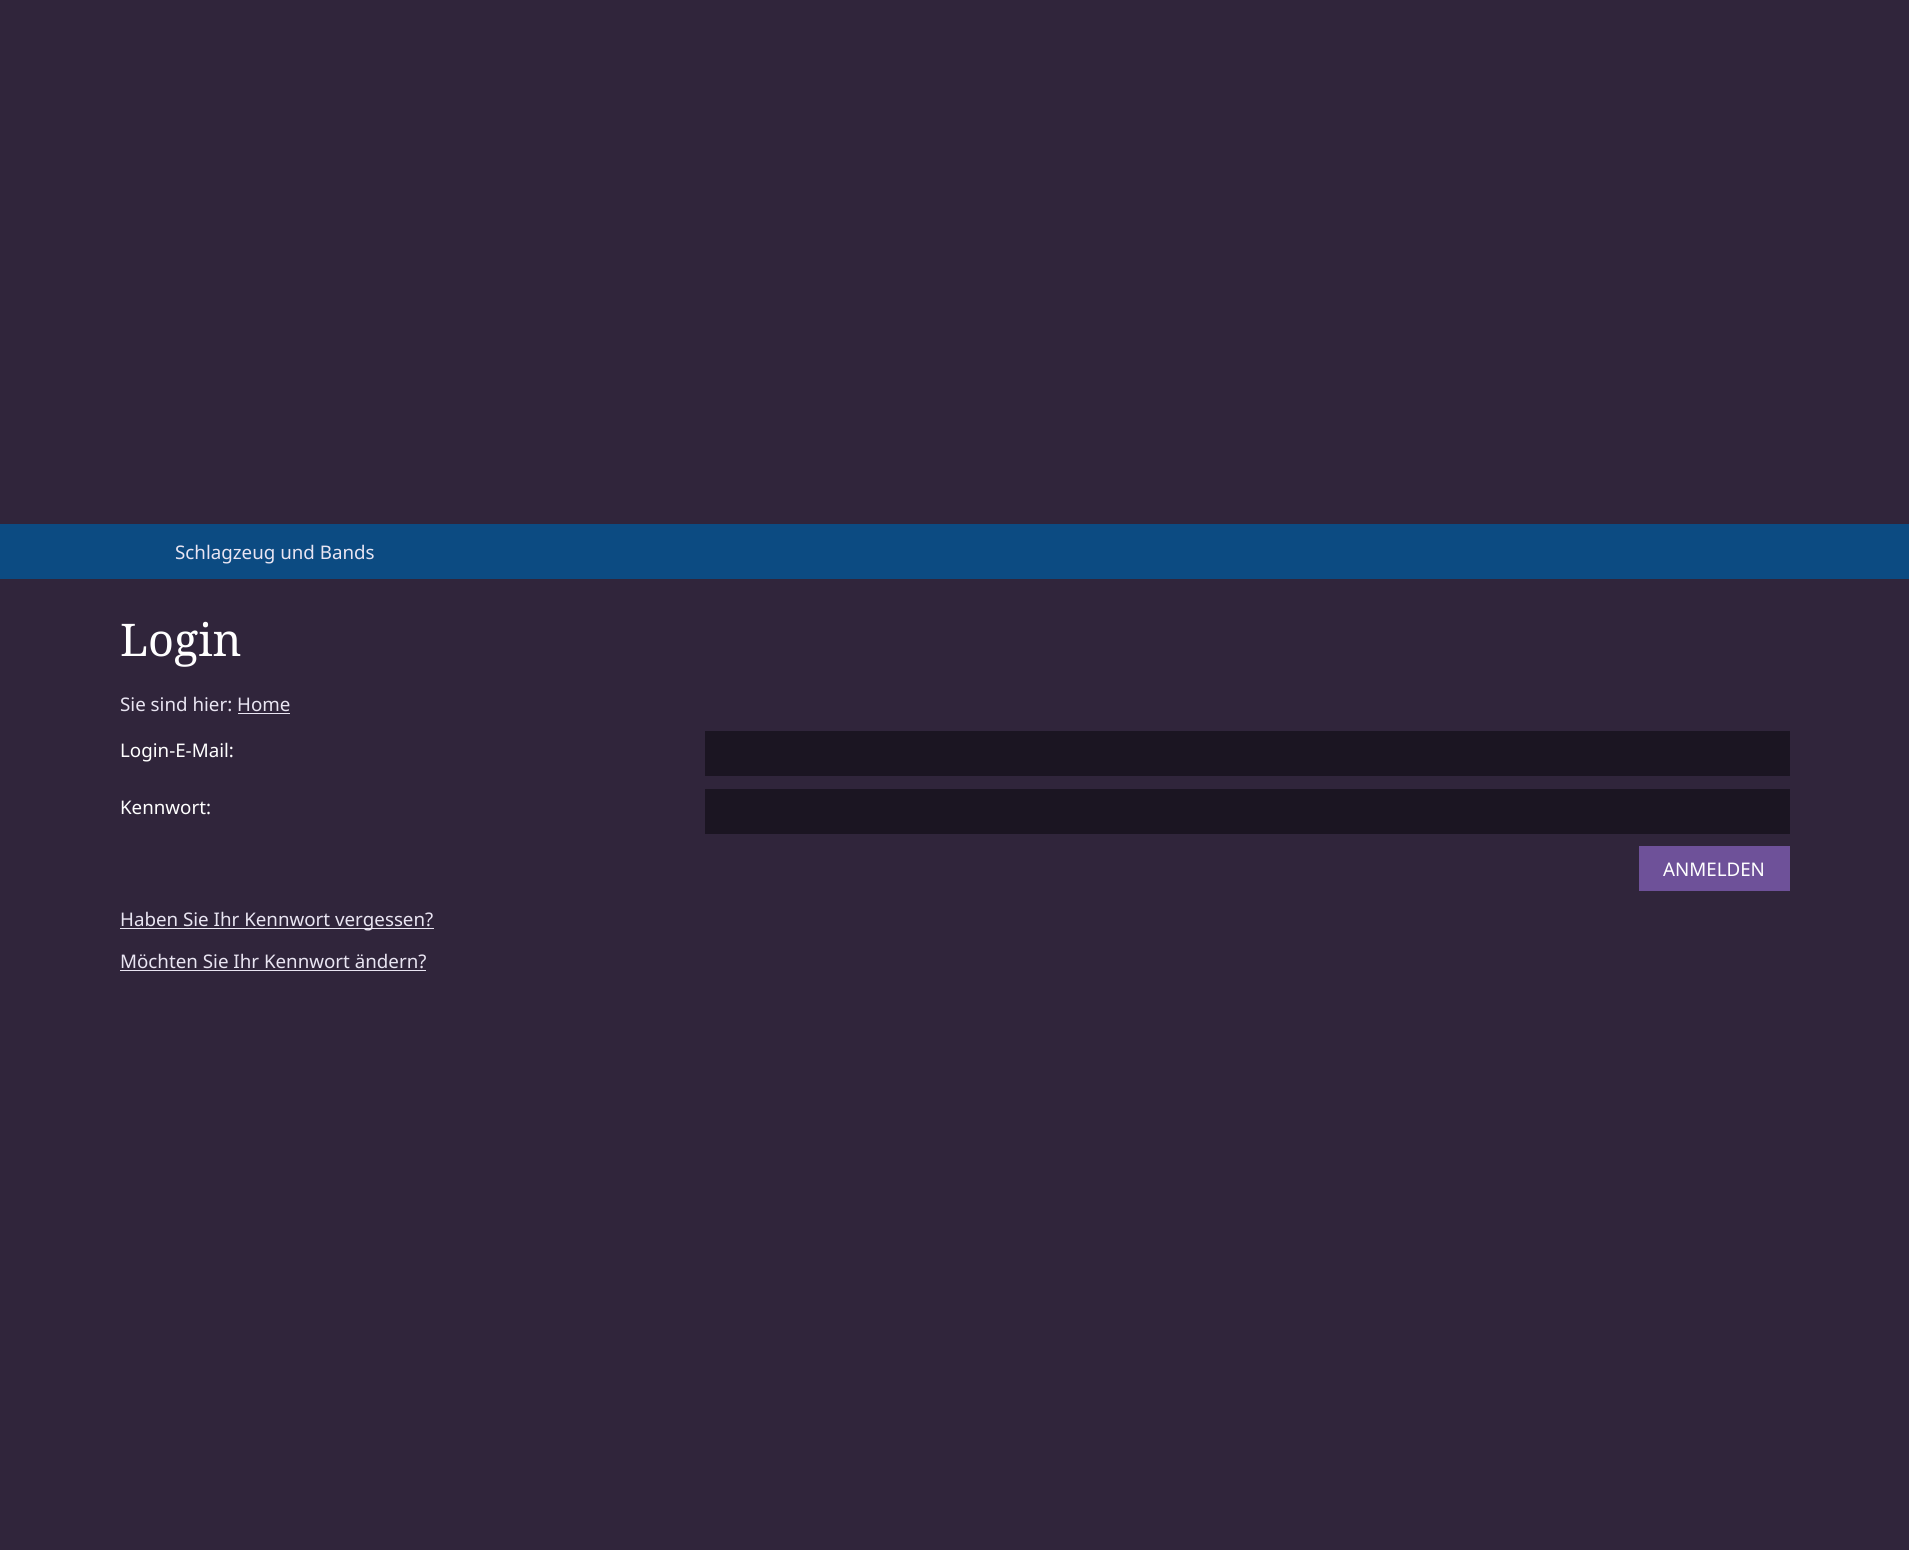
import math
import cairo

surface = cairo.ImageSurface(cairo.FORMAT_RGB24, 1909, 1550)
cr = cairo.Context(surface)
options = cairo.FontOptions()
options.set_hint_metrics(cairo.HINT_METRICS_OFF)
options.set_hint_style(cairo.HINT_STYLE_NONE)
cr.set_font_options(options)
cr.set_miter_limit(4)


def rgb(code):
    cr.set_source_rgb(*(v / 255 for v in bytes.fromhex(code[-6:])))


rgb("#30253b")
cr.paint()
for x, y, w, h, color in [
    (0, 524, 1909, 55, "#0c4b82"),
    (238, 713, 52, 1, "#e9e5f2"),
    (705, 731, 1085, 45, "#1b1522"),
    (705, 789, 1085, 45, "#1b1522"),
    (1639, 846, 151, 45, "#6e5199"),
    (120, 928, 314, 1, "#e9e5f2"),
    (120, 970, 306, 1, "#e9e5f2"),
]:
    rgb(color)
    cr.rectangle(x, y, w, h)
    cr.fill()
cr.select_font_face("Noto Sans")
cr.set_font_size(18.75)
cr.move_to(175, 559)
cr.show_text("Schlagzeug und Bands")
cr.select_font_face("Noto Serif")
cr.set_font_size(45)
rgb("#ffffff")
cr.move_to(120, 656)
cr.show_text("Login")
cr.select_font_face("Noto Sans")
cr.set_font_size(18.75)
rgb("#e9e5f2")
cr.move_to(120, 711)
cr.show_text("Sie sind hier: Home")
rgb("#ffffff")
for x, y, s in [
    (120, 757, "Login-E-Mail:"),
    (120, 814, "Kennwort:"),
    (1663, 876, "ANMELDEN"),
]:
    cr.move_to(x, y)
    cr.show_text(s)
rgb("#e9e5f2")
cr.move_to(120, 926)
cr.show_text("Haben Sie Ihr Kennwort vergessen?")
cr.move_to(120, 968)
cr.show_text("Möchten Sie Ihr Kennwort ändern?")
surface.write_to_png("page.png")
